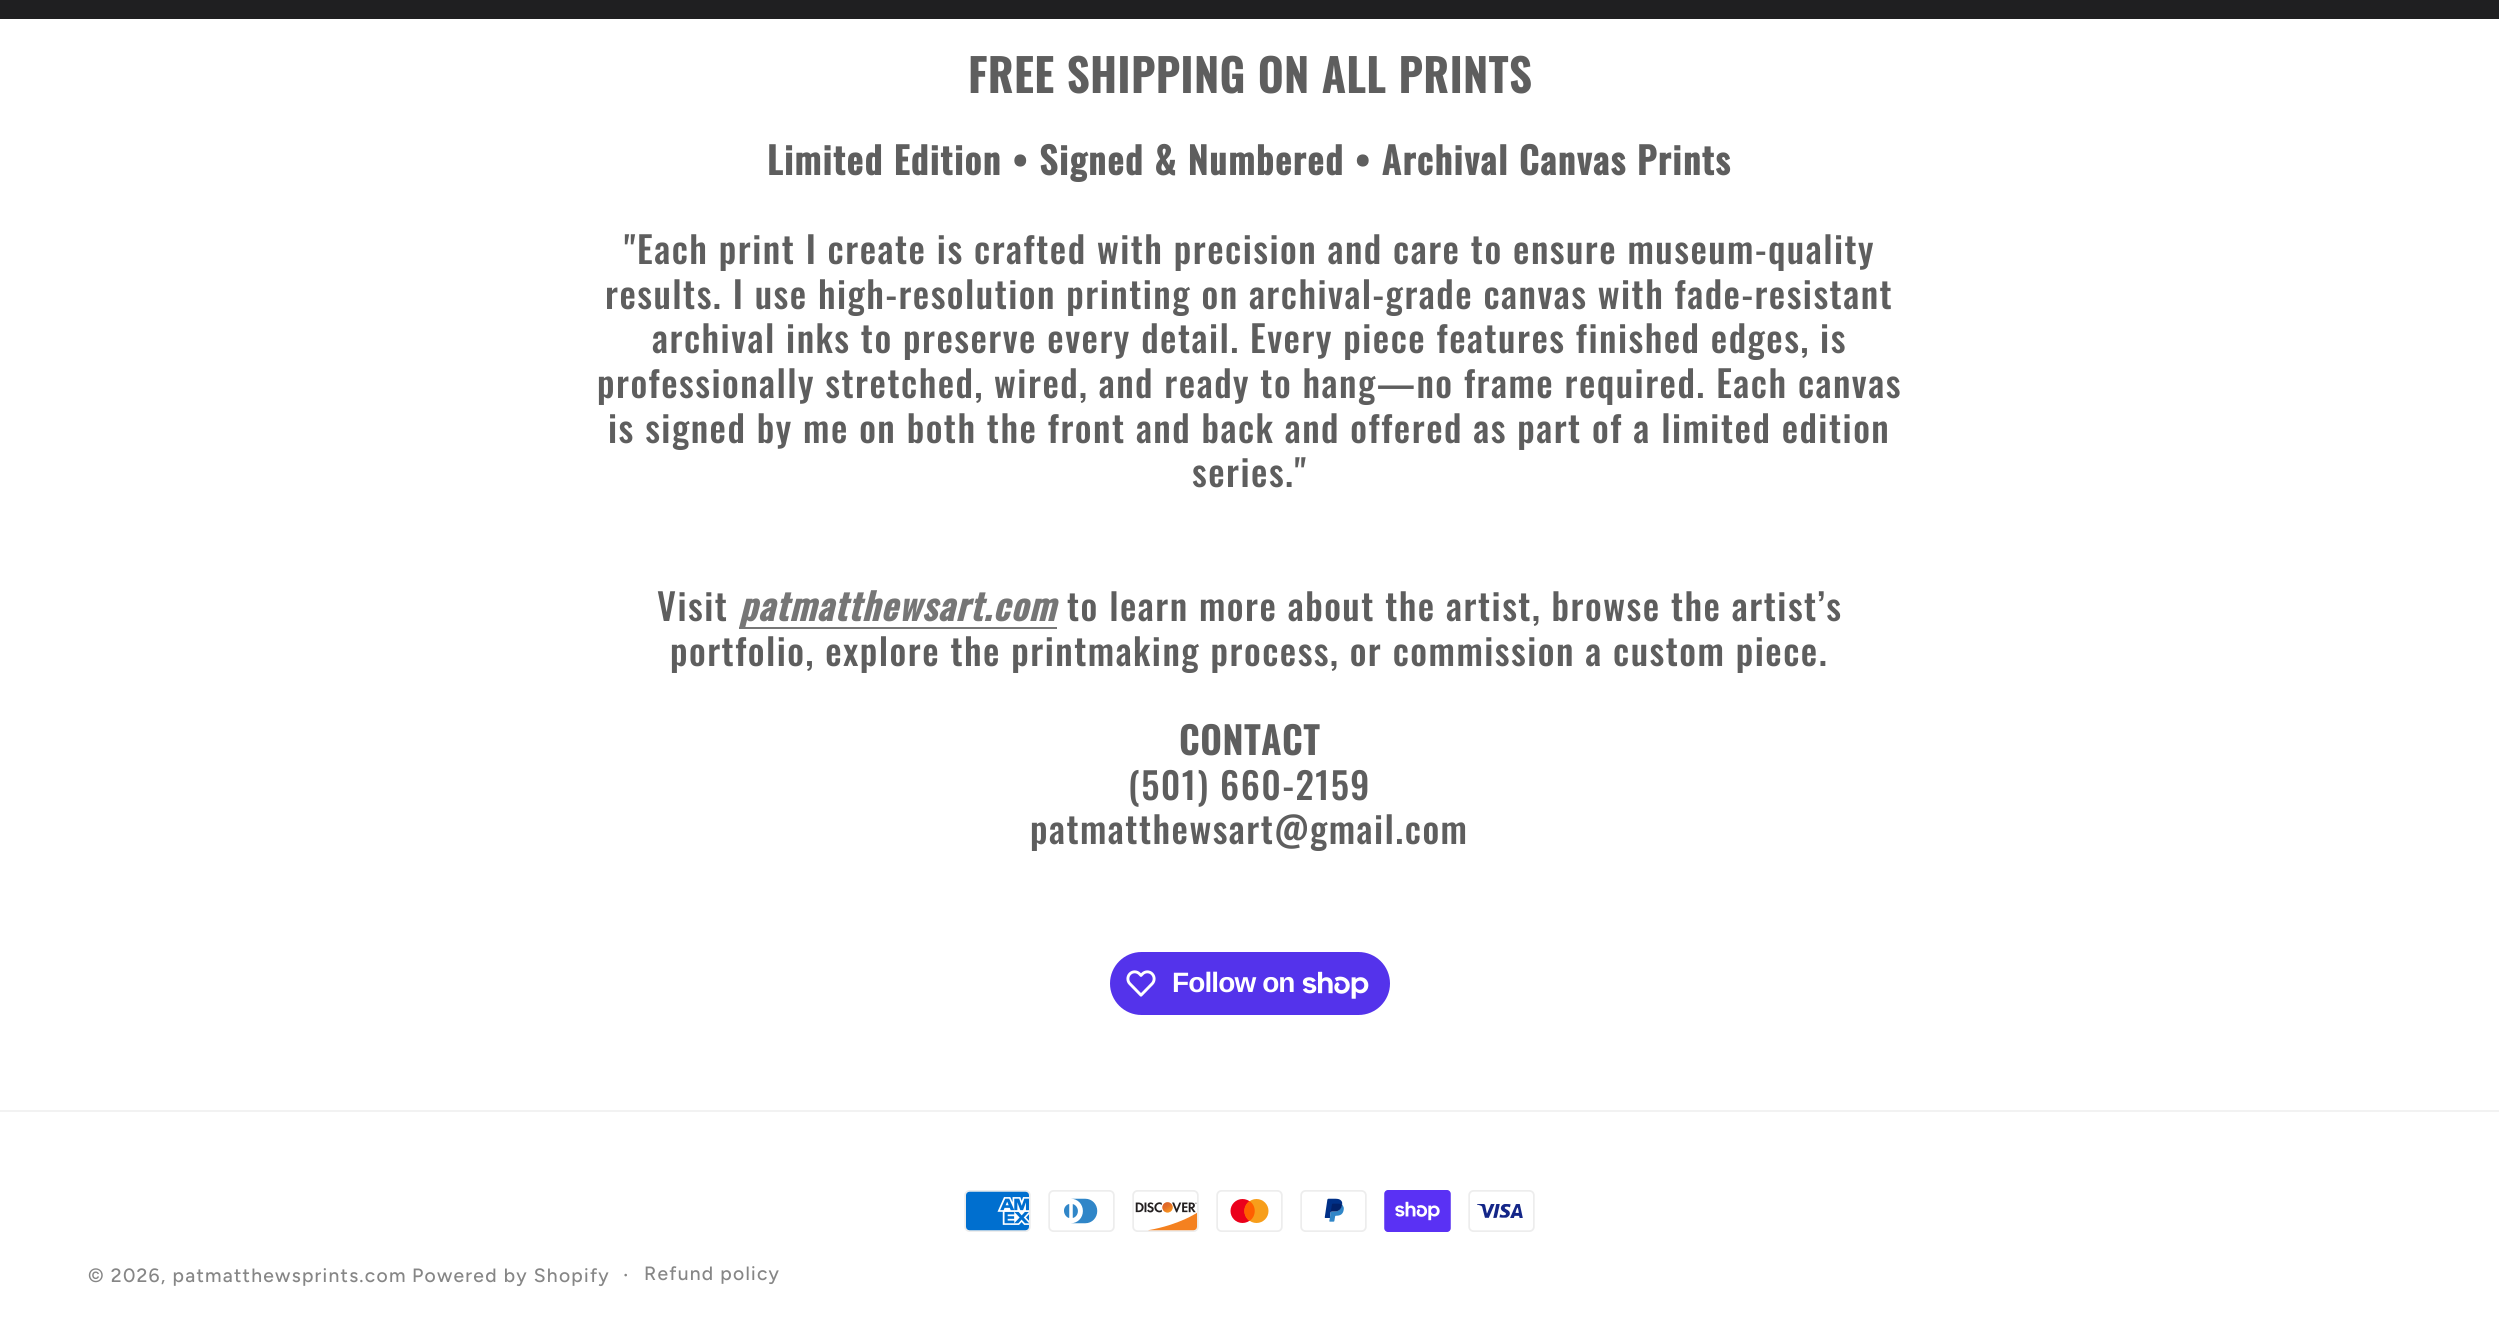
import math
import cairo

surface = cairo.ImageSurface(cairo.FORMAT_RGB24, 2499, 1321)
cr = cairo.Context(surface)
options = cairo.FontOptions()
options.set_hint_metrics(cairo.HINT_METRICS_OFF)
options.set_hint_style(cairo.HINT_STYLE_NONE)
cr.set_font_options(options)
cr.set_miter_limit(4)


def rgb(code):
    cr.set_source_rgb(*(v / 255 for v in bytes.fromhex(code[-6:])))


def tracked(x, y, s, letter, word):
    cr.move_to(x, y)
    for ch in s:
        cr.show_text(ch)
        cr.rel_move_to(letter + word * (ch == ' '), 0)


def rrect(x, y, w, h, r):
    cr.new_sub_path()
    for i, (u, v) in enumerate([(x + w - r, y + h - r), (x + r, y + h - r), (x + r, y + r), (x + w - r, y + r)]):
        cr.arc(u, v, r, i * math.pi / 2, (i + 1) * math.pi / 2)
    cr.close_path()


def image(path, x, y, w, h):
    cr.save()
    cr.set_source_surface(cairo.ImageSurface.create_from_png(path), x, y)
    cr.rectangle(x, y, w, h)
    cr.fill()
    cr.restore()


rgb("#1f1f21")
cr.paint()
rgb("#ffffff")
cr.rectangle(0, 19, 2499, 1302)
cr.fill()
rgb("#767676")
cr.rectangle(739, 627, 318, 2)
cr.fill()
rgb("#5433eb")
rrect(1110, 952, 280, 63, 31.5)
cr.fill()
image("img/1.png", 1126, 970, 30, 27)
image("img/2.png", 1302, 971, 67, 28)
rgb("#f2f2f2")
cr.rectangle(0, 1110, 2499, 2)
cr.fill()
image("img/3.png", 964, 1190, 67, 42)
image("img/4.png", 1048, 1190, 67, 42)
image("img/5.png", 1132, 1190, 67, 42)
image("img/6.png", 1216, 1190, 67, 42)
image("img/7.png", 1300, 1190, 67, 42)
image("img/8.png", 1384, 1190, 67, 42)
image("img/9.png", 1468, 1190, 67, 42)
cr.select_font_face("Oswald", cairo.FONT_SLANT_NORMAL, cairo.FONT_WEIGHT_BOLD)
cr.set_font_size(44.1)
rgb("#5e5e5e")
tracked(968, 93, "FREE SHIPPING ON ALL PRINTS", 1.47, 0)
cr.set_font_size(36.75)
tracked(767, 175, "Limited Edition • Signed & Numbered • Archival Canvas Prints", 1.47, 0)
cr.select_font_face("Oswald Medium")
for x, y, s in [
    (624, 264, "\"Each print I create is crafted with precision and care to ensure museum-quality"),
    (605, 309, "results. I use high-resolution printing on archival-grade canvas with fade-resistant"),
    (652, 353, "archival inks to preserve every detail. Every piece features finished edges, is"),
    (597, 398, "professionally stretched, wired, and ready to hang—no frame required. Each canvas"),
    (608, 443, "is signed by me on both the front and back and offered as part of a limited edition"),
    (1192, 487, "series.\""),
    (657, 621, "Visit"),
]:
    tracked(x, y, s, 1.47, 0)
cr.select_font_face("Oswald", cairo.FONT_SLANT_ITALIC, cairo.FONT_WEIGHT_BOLD)
rgb("#767676")
tracked(739, 621, "patmatthewsart.com", 1.47, 0)
cr.select_font_face("Oswald Medium")
rgb("#5e5e5e")
tracked(1067, 621, "to learn more about the artist, browse the artist’s", 1.47, 0)
tracked(670, 666, "portfolio, explore the printmaking process, or commission a custom piece.", 1.47, 0)
cr.select_font_face("Oswald", cairo.FONT_SLANT_NORMAL, cairo.FONT_WEIGHT_BOLD)
tracked(1179, 755, "CONTACT", 1.47, 0)
cr.select_font_face("Oswald Medium")
tracked(1128, 800, "(501) 660-2159", 1.47, 0)
tracked(1030, 844, "patmatthewsart@gmail.com", 1.47, 0)
cr.select_font_face("Liberation Sans", cairo.FONT_SLANT_NORMAL, cairo.FONT_WEIGHT_BOLD)
cr.set_font_size(28)
rgb("#ffffff")
tracked(1172, 992, "Follow on", -0.9, 0)
cr.select_font_face("Figtree Medium")
cr.set_font_size(19.25)
rgb("#868686")
tracked(88, 1282, "© 2026, patmatthewsprints.com", 1.25, 0)
tracked(412, 1282, "Powered by Shopify", 1.25, 0)
cr.set_font_size(21)
tracked(623, 1282, "·", 1.25, 0)
cr.set_font_size(19.25)
tracked(644, 1280, "Refund policy", 1.25, 0)
surface.write_to_png("page.png")
